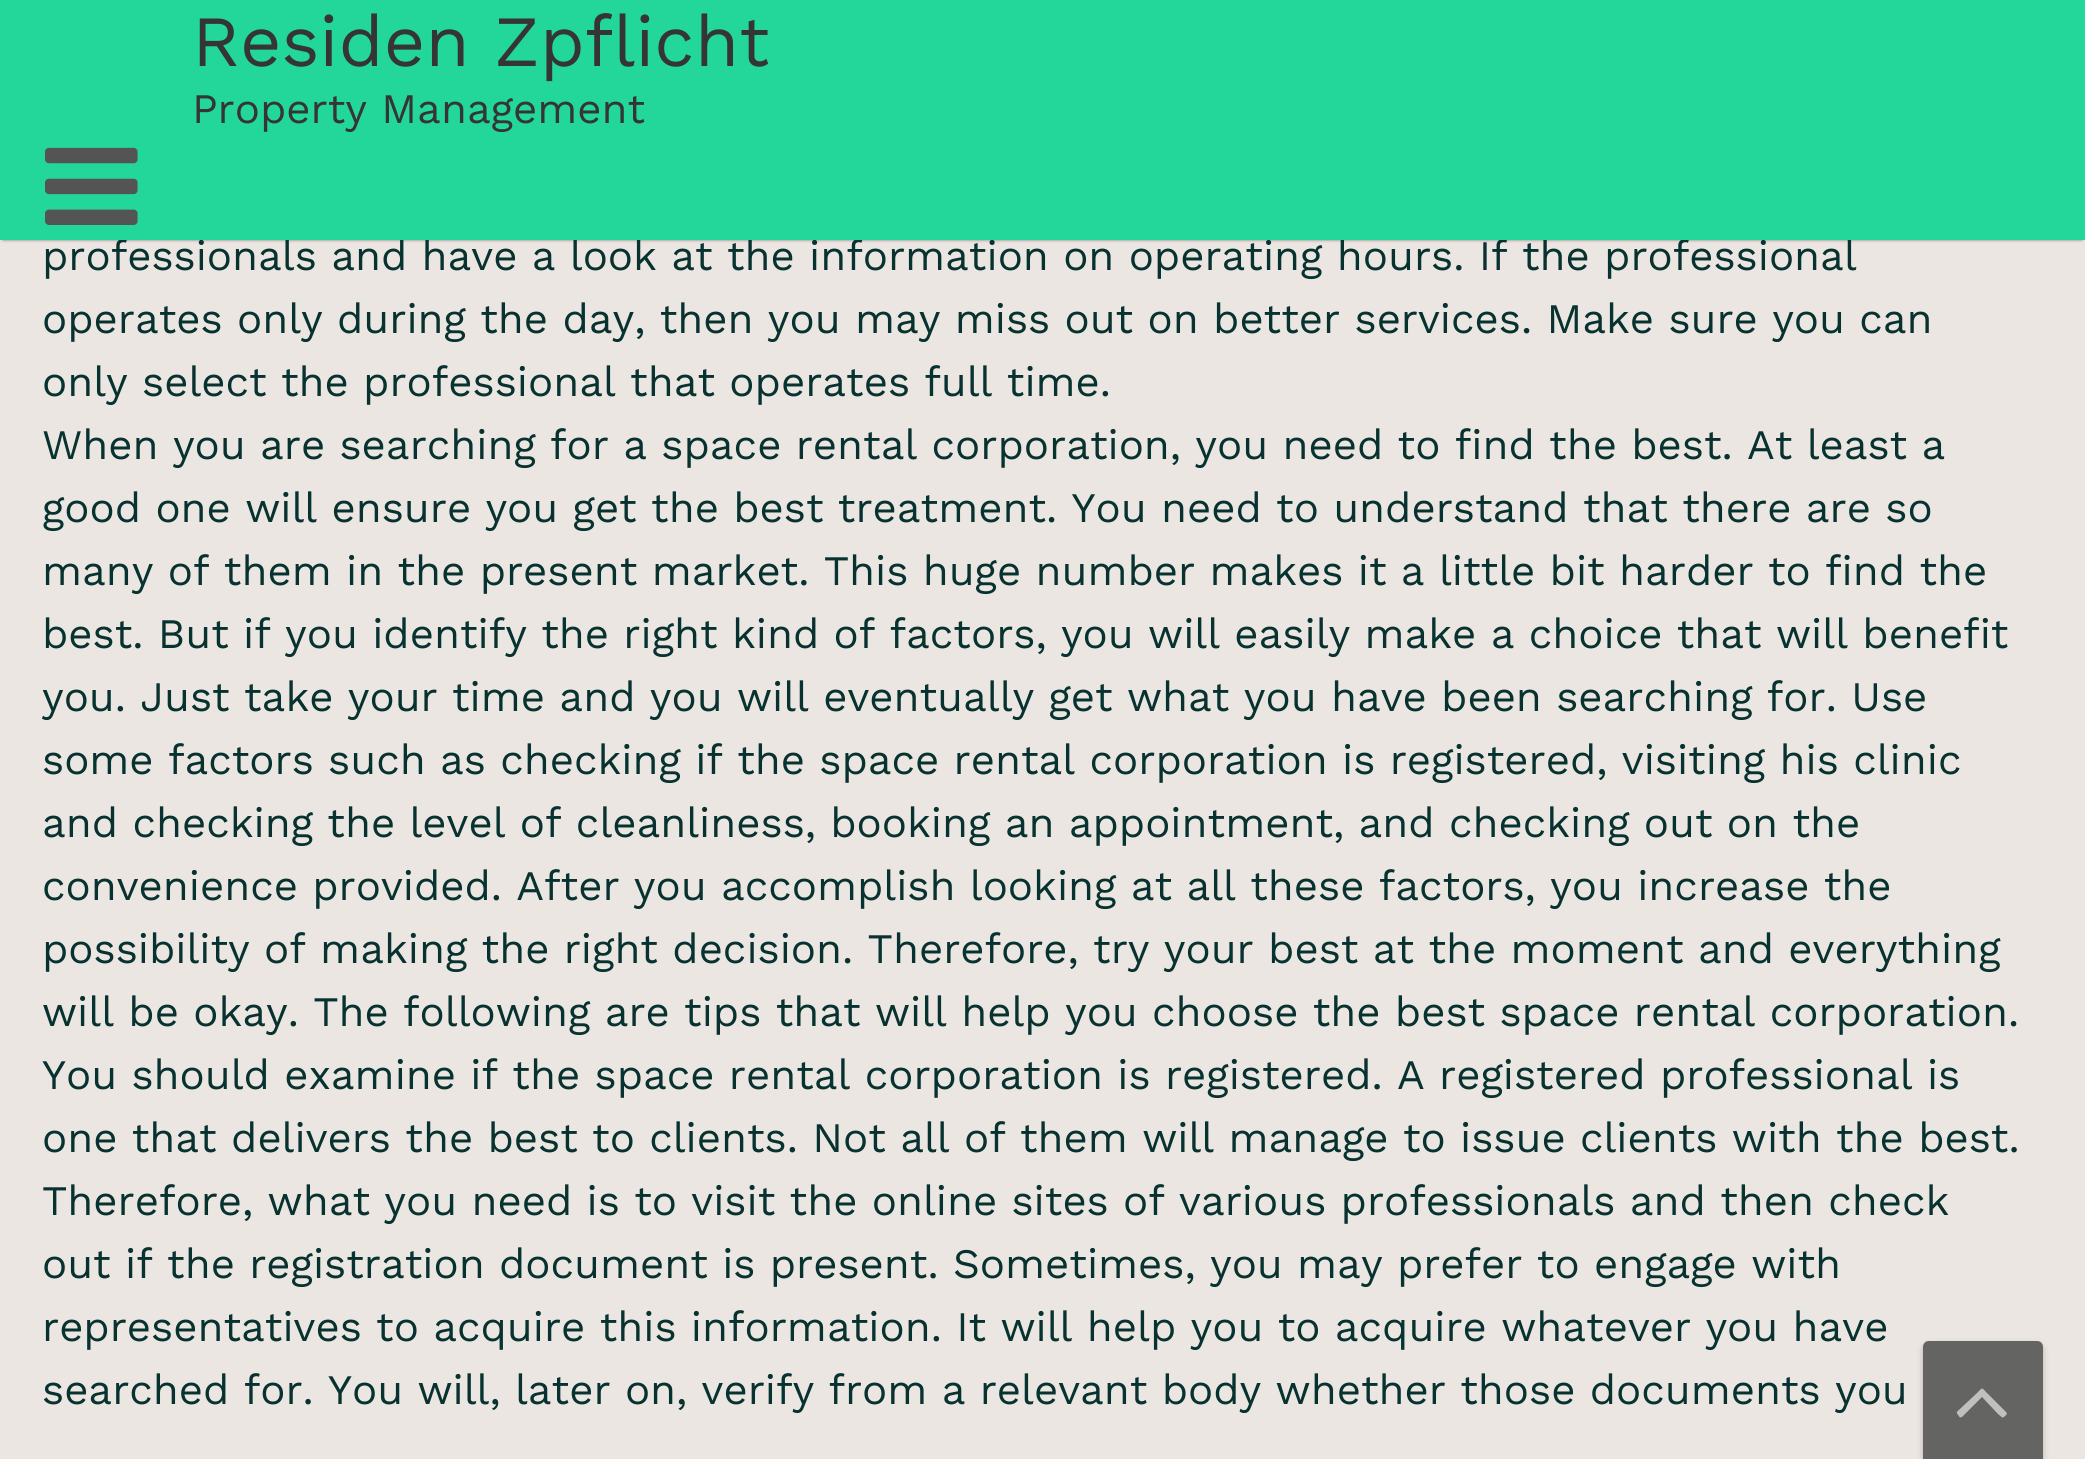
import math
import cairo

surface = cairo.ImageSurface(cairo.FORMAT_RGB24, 2085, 1459)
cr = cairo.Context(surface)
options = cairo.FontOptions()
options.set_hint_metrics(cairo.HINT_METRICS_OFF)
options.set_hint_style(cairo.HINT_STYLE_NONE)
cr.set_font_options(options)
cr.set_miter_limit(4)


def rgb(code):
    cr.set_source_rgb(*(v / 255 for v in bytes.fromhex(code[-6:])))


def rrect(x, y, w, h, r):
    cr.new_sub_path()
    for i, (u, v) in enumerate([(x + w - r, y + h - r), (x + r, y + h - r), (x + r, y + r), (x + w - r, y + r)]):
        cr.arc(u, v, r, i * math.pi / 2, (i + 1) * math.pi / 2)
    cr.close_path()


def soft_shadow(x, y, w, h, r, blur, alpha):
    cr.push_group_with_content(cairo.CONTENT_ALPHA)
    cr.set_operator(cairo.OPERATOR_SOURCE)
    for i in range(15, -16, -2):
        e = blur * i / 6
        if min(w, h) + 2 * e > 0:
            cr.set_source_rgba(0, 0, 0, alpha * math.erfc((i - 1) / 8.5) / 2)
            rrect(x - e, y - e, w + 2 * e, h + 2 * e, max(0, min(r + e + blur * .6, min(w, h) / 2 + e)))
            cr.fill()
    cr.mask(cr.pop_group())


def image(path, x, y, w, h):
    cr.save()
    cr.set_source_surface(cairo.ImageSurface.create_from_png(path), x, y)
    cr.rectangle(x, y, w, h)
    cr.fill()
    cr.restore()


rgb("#ebe6e2")
cr.paint()
rgb("#777777")
soft_shadow(3, 6, 2079, 234, 0, 1.5, 1)
rgb("#181717")
soft_shadow(1923, 1344, 120, 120, 6, 3, 0.25)
rgb("#646463")
cr.new_path()
cr.move_to(1929, 1341)
cr.line_to(2037, 1341)
cr.curve_to(2040.5, 1341, 2043, 1343.5, 2043, 1347)
cr.line_to(2043, 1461)
cr.line_to(1923, 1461)
cr.line_to(1923, 1347)
cr.curve_to(1923, 1343.5, 1925.5, 1341, 1929, 1341)
cr.close_path()
cr.fill()
rgb("#c0c0bf")
cr.new_path()
cr.move_to(2006, 1412)
cr.curve_to(2008, 1414, 2006, 1415, 2005, 1416)
cr.curve_to(2002, 1419, 2002, 1417, 1998, 1414)
cr.line_to(1982, 1397)
cr.line_to(1962, 1417)
cr.curve_to(1960, 1418, 1959, 1417, 1959, 1416)
cr.curve_to(1955, 1412, 1957, 1412, 1961, 1408)
cr.line_to(1977, 1393)
cr.curve_to(1983, 1387, 1981, 1387, 1987, 1393)
cr.close_path()
cr.fill()
cr.select_font_face("Work Sans")
cr.set_font_size(42)
rgb("#08322f")
cr.move_to(42, 270)
cr.show_text("professionals and have a look at the information on operating hours. If the professional")
rgb("#23d79b")
cr.rectangle(0, 0, 2085, 240)
cr.fill()
rgb("#353535")
cr.move_to(192, 123)
cr.show_text("Property Management")
cr.set_font_size(72)
cr.move_to(192, 66)
cr.show_text("Residen Zpflicht")
image("img/1.png", 45, 147, 93, 78)
cr.set_font_size(42)
rgb("#08322f")
for x, y, s in [
    (42, 333, "operates only during the day, then you may miss out on better services. Make sure you can"),
    (42, 396, "only select the professional that operates full time."),
    (42, 459, "When you are searching for a space rental corporation, you need to find the best. At least a"),
    (42, 522, "good one will ensure you get the best treatment. You need to understand that there are so"),
    (42, 585, "many of them in the present market. This huge number makes it a little bit harder to find the"),
    (42, 648, "best. But if you identify the right kind of factors, you will easily make a choice that will benefit"),
    (42, 711, "you. Just take your time and you will eventually get what you have been searching for. Use"),
    (42, 774, "some factors such as checking if the space rental corporation is registered, visiting his clinic"),
    (42, 837, "and checking the level of cleanliness, booking an appointment, and checking out on the"),
    (42, 900, "convenience provided. After you accomplish looking at all these factors, you increase the"),
    (42, 963, "possibility of making the right decision. Therefore, try your best at the moment and everything"),
    (42, 1026, "will be okay. The following are tips that will help you choose the best space rental corporation."),
    (42, 1089, "You should examine if the space rental corporation is registered. A registered professional is"),
    (42, 1152, "one that delivers the best to clients. Not all of them will manage to issue clients with the best."),
    (42, 1215, "Therefore, what you need is to visit the online sites of various professionals and then check"),
    (42, 1278, "out if the registration document is present. Sometimes, you may prefer to engage with"),
    (42, 1341, "representatives to acquire this information. It will help you to acquire whatever you have"),
    (42, 1404, "searched for. You will, later on, verify from a relevant body whether those documents you"),
]:
    cr.move_to(x, y)
    cr.show_text(s)
surface.write_to_png("page.png")
